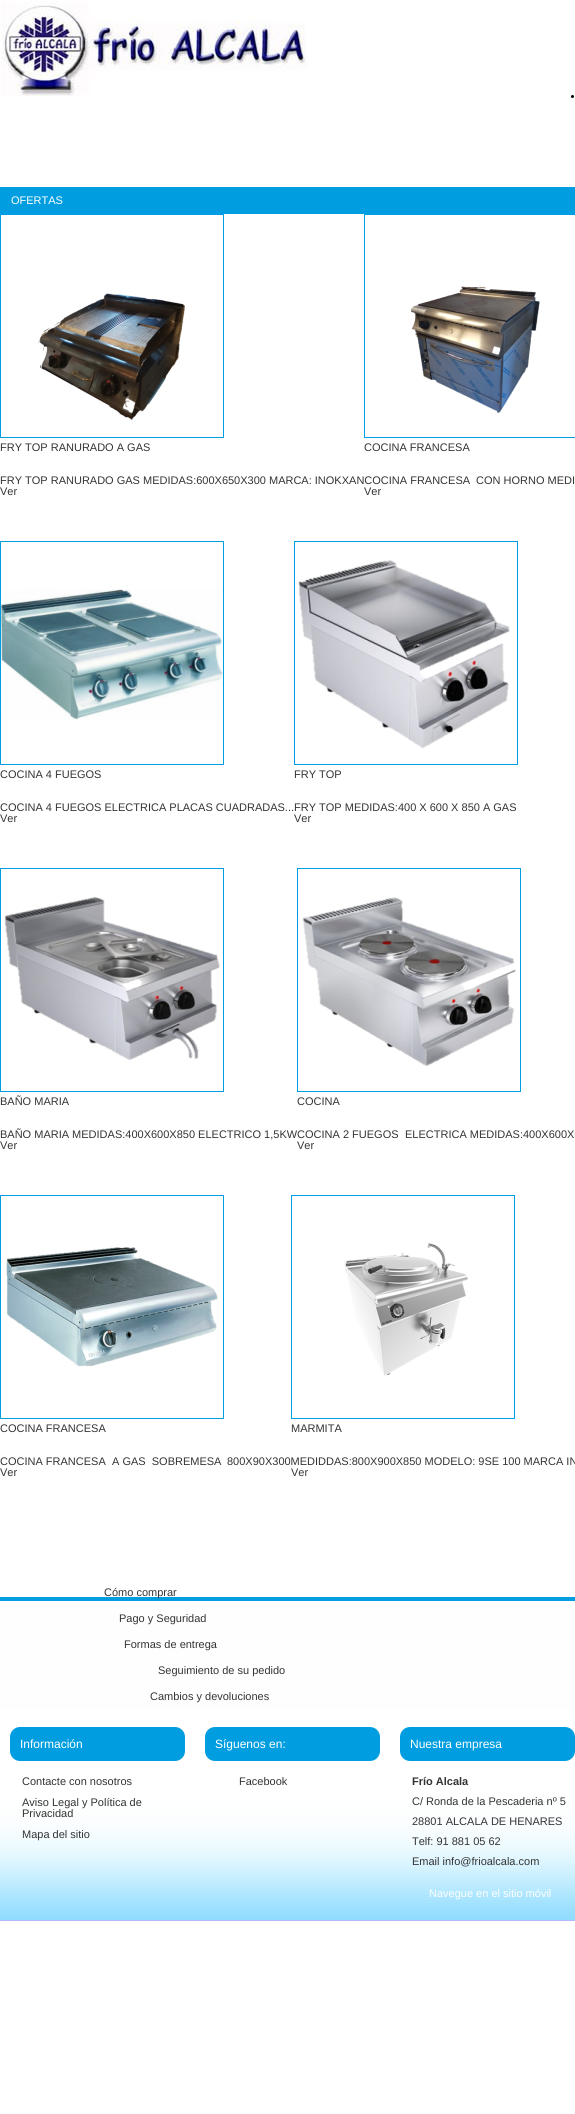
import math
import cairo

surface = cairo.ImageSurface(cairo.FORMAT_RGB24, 575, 2114)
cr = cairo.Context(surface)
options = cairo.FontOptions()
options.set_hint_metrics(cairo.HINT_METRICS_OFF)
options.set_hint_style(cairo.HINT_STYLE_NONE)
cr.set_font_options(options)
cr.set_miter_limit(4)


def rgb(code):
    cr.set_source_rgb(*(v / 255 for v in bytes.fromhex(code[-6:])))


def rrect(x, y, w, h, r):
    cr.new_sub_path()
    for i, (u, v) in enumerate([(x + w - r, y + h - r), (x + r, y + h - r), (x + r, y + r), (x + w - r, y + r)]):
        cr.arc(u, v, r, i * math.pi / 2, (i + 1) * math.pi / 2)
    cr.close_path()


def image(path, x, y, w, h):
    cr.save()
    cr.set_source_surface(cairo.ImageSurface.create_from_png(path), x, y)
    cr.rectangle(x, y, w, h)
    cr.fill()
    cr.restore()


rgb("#ffffff")
cr.paint()
image("img/1.png", 0, 1597, 575, 324)
image("img/2.png", 0, 0, 308, 96)
rgb("#000000")
cr.arc(572.5, 96.5, 1.5, 0, 2 * math.pi)
cr.fill()
rgb("#009ee0")
cr.rectangle(0, 187, 575, 27)
cr.fill()
cr.rectangle(0.5, 214.5, 223, 223)
cr.set_line_width(1)
cr.stroke()
image("img/3.png", 38, 293, 147, 127)
cr.rectangle(364.5, 214.5, 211, 223)
cr.stroke()
image("img/4.png", 410, 286, 130, 127)
cr.rectangle(0.5, 541.5, 223, 223)
cr.stroke()
image("img/5.png", 1, 589, 222, 131)
cr.rectangle(294.5, 541.5, 223, 223)
cr.stroke()
image("img/6.png", 298, 560, 212, 189)
cr.rectangle(0.5, 868.5, 223, 223)
cr.stroke()
image("img/7.png", 4, 896, 216, 165)
cr.rectangle(297.5, 868.5, 223, 223)
cr.stroke()
image("img/8.png", 302, 897, 214, 170)
cr.rectangle(0.5, 1195.5, 223, 223)
cr.stroke()
image("img/9.png", 6, 1247, 212, 120)
cr.rectangle(291.5, 1195.5, 223, 223)
cr.stroke()
image("img/10.png", 344, 1243, 124, 133)
rrect(10, 1727, 175, 34, 10)
cr.fill()
rrect(205, 1727, 175, 34, 10)
cr.fill()
rrect(400, 1727, 175, 34, 10)
cr.fill()
cr.select_font_face("Liberation Sans")
cr.set_font_size(11)
rgb("#ffffff")
cr.move_to(11, 204)
cr.show_text("OFERTAS")
rgb("#333333")
for x, y, s in [
    (0, 451, "FRY TOP RANURADO A GAS"),
    (0, 484, "FRY TOP RANURADO GAS MEDIDAS:600X650X300 MARCA: INOKXANCOCINA FRANCESA"),
    (0, 495, "Ver"),
    (364, 451, "COCINA FRANCESA"),
    (476, 484, "CON HORNO MEDI"),
    (364, 495, "Ver"),
    (0, 778, "COCINA 4 FUEGOS"),
    (0, 811, "COCINA 4 FUEGOS ELECTRICA PLACAS CUADRADAS...FRY TOP MEDIDAS:400 X 600 X 850 A GAS"),
    (0, 822, "Ver"),
    (294, 778, "FRY TOP"),
    (294, 822, "Ver"),
    (0, 1105, "BAÑO MARIA"),
    (0, 1138, "BAÑO MARIA MEDIDAS:400X600X850 ELECTRICO 1,5KWCOCINA 2 FUEGOS"),
    (0, 1149, "Ver"),
    (297, 1105, "COCINA"),
    (405, 1138, "ELECTRICA MEDIDAS:400X600X"),
    (297, 1149, "Ver"),
    (0, 1432, "COCINA FRANCESA"),
    (0, 1465, "COCINA FRANCESA"),
    (112, 1465, "A GAS  SOBREMESA"),
    (227, 1465, "800X90X300MEDIDDAS:800X900X850 MODELO: 9SE 100 MARCA IN"),
    (0, 1476, "Ver"),
    (291, 1432, "MARMITA"),
    (291, 1476, "Ver"),
    (104, 1596, "Cómo comprar"),
    (119, 1622, "Pago y Seguridad"),
    (124, 1648, "Formas de entrega"),
    (158, 1674, "Seguimiento de su pedido"),
    (150, 1700, "Cambios y devoluciones"),
]:
    cr.move_to(x, y)
    cr.show_text(s)
cr.set_font_size(12)
rgb("#ffffff")
cr.move_to(20, 1748)
cr.show_text("Información")
cr.set_font_size(11)
rgb("#333333")
for x, y, s in [
    (22, 1785, "Contacte con nosotros"),
    (22, 1806, "Aviso Legal y Política de"),
    (22, 1817, "Privacidad"),
    (22, 1838, "Mapa del sitio"),
]:
    cr.move_to(x, y)
    cr.show_text(s)
cr.set_font_size(12)
rgb("#ffffff")
cr.move_to(215, 1748)
cr.show_text("Síguenos en:")
cr.set_font_size(11)
rgb("#333333")
cr.move_to(239, 1785)
cr.show_text("Facebook")
cr.set_font_size(12)
rgb("#ffffff")
cr.move_to(410, 1748)
cr.show_text("Nuestra empresa")
cr.select_font_face("Liberation Sans", cairo.FONT_SLANT_NORMAL, cairo.FONT_WEIGHT_BOLD)
cr.set_font_size(11)
rgb("#333333")
cr.move_to(412, 1785)
cr.show_text("Frío Alcala")
cr.select_font_face("Liberation Sans")
for x, y, s in [
    (412, 1805, "C/ Ronda de la Pescaderia nº 5"),
    (412, 1825, "28801 ALCALA DE HENARES"),
    (412, 1845, "Telf: 91 881 05 62"),
    (412, 1865, "Email info@frioalcala.com"),
]:
    cr.move_to(x, y)
    cr.show_text(s)
rgb("#ffffff")
cr.move_to(429, 1897)
cr.show_text("Navegue en el sitio móvil")
surface.write_to_png("page.png")
